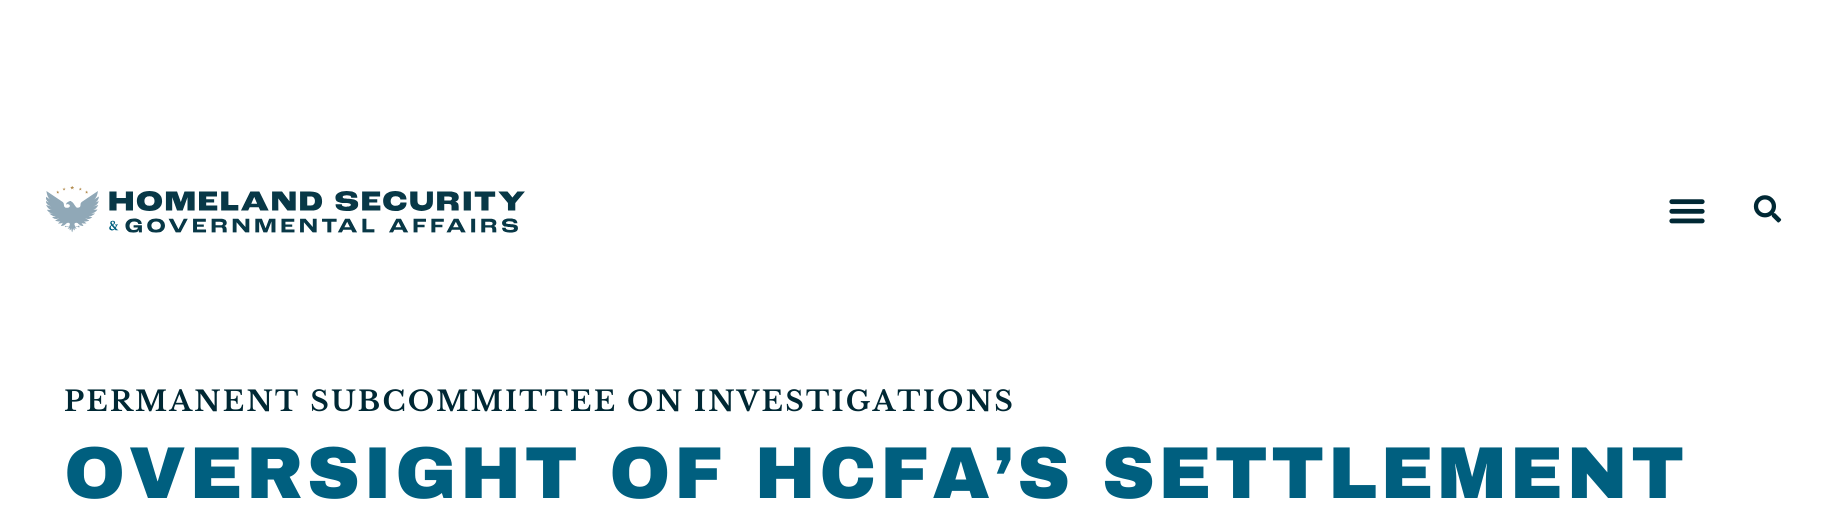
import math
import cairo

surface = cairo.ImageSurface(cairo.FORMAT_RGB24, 1829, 532)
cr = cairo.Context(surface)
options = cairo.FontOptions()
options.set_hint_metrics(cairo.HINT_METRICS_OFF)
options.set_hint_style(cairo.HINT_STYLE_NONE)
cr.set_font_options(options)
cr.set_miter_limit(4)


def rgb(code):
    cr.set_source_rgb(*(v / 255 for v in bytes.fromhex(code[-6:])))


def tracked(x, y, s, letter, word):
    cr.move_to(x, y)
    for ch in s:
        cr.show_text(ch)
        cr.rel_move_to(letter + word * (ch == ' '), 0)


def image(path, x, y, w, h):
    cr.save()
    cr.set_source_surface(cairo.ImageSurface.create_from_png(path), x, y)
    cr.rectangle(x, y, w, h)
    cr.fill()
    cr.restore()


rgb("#ffffff")
cr.paint()
image("img/1.png", 46, 186, 479, 47)
image("img/2.png", 1669, 199, 36, 25)
image("img/3.png", 1753, 195, 29, 28)
cr.select_font_face("Libre Baskerville", cairo.FONT_SLANT_NORMAL, cairo.FONT_WEIGHT_BOLD)
cr.set_font_size(28)
rgb("#002834")
tracked(64, 411, "PERMANENT SUBCOMMITTEE ON INVESTIGATIONS", 2.25, 0)
cr.select_font_face("Archivo Black Black")
cr.set_font_size(73.5)
rgb("#005f7f")
tracked(64, 498, "OVERSIGHT OF HCFA’S SETTLEMENT", 3.5, 0)
surface.write_to_png("page.png")
